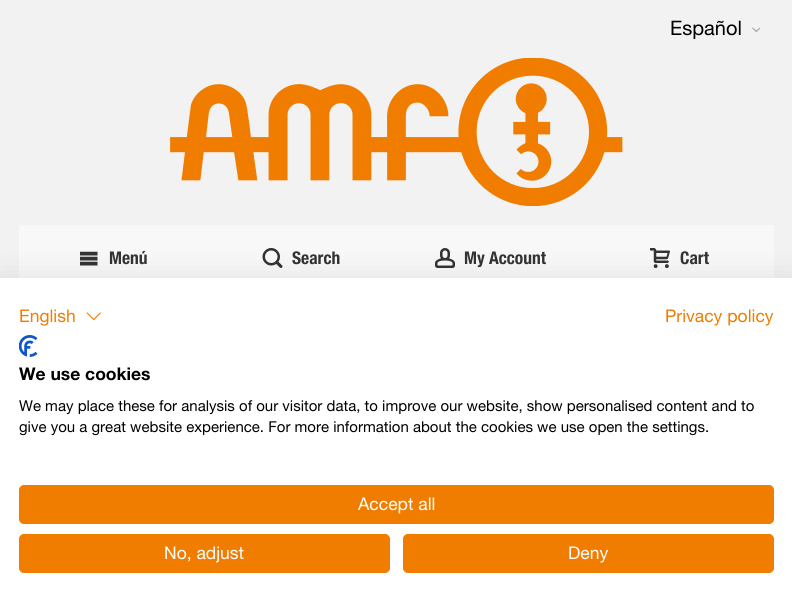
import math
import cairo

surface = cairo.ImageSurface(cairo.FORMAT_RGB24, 792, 606)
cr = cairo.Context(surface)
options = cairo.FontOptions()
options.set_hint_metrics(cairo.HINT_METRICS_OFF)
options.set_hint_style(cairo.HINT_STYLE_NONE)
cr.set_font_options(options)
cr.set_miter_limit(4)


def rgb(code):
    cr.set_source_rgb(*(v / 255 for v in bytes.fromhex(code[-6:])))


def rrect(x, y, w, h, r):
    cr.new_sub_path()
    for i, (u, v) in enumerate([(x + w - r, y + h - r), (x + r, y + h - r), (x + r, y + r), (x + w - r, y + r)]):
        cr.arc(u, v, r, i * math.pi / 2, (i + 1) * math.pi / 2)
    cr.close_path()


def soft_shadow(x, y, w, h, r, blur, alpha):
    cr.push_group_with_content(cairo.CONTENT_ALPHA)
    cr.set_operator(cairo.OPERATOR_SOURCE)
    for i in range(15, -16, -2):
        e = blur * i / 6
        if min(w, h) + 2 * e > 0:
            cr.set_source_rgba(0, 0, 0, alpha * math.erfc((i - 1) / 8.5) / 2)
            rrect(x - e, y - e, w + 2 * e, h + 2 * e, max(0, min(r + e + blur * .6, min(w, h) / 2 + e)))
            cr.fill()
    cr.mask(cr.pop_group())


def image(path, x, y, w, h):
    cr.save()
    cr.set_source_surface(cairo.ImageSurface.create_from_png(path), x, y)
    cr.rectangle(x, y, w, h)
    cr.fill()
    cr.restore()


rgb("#f2f2f2")
cr.paint()
image("img/1.png", 752, 27, 9, 5)
image("img/2.png", 170, 58, 453, 148)
rgb("#f8f8f8")
cr.rectangle(19, 225, 755, 53)
cr.fill()
image("img/3.png", 80, 251, 18, 15)
image("img/4.png", 262, 248, 21, 20)
image("img/5.png", 435, 248, 20, 20)
image("img/6.png", 650, 248, 20, 20)
rgb("#000000")
soft_shadow(0, 278, 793, 328, 0, 15, 0.1)
rgb("#ffffff")
cr.rectangle(0, 278, 792, 328)
cr.fill()
image("img/7.png", 86, 312, 15, 8)
image("img/8.png", 19, 335, 19, 22)
rgb("#f07d00")
rrect(19.5, 485.5, 754, 38, 4.5)
cr.fill_preserve()
cr.set_line_width(1)
cr.stroke()
rrect(19.5, 534.5, 370, 38, 4.5)
cr.fill_preserve()
cr.stroke()
rrect(403.5, 534.5, 370, 38, 4.5)
cr.fill_preserve()
cr.stroke()
cr.select_font_face("Helvetica Neue")
cr.set_font_size(20)
rgb("#000000")
cr.move_to(670, 35)
cr.show_text("Español")
cr.select_font_face("Helvetica Neue", cairo.FONT_SLANT_NORMAL, cairo.FONT_WEIGHT_BOLD)
cr.set_font_size(17.5)
rgb("#333333")
for x, y, s in [
    (109, 264, "Menú"),
    (292, 264, "Search"),
    (464, 264, "My Account"),
    (680, 264, "Cart"),
]:
    cr.move_to(x, y)
    cr.show_text(s)
cr.select_font_face("Helvetica Neue")
rgb("#f07d00")
cr.move_to(19, 322)
cr.show_text("English")
cr.move_to(665, 322)
cr.show_text("Privacy policy")
cr.select_font_face("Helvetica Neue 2", cairo.FONT_SLANT_NORMAL, cairo.FONT_WEIGHT_BOLD)
rgb("#000000")
cr.move_to(19, 380)
cr.show_text("We use cookies")
cr.select_font_face("Helvetica Neue")
cr.set_font_size(15)
cr.move_to(19, 411)
cr.show_text("We may place these for analysis of our visitor data, to improve our website, show personalised content and to")
cr.move_to(19, 432)
cr.show_text("give you a great website experience. For more information about the cookies we use open the settings.")
cr.set_font_size(17.5)
rgb("#ffffff")
for x, y, s in [
    (358, 510, "Accept all"),
    (164, 559, "No, adjust"),
    (568, 559, "Deny"),
]:
    cr.move_to(x, y)
    cr.show_text(s)
surface.write_to_png("page.png")
